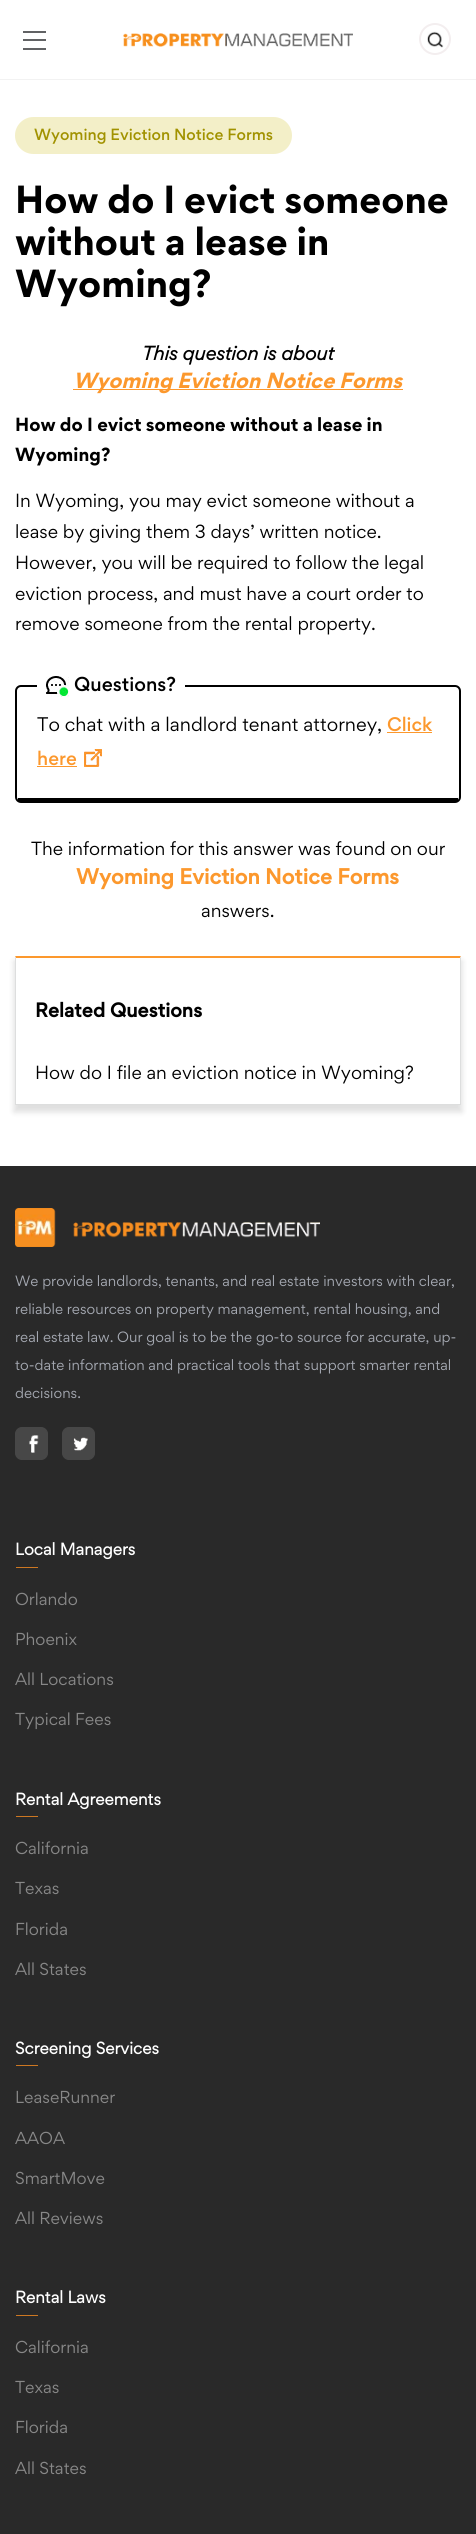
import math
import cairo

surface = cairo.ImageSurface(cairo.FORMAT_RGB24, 476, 2534)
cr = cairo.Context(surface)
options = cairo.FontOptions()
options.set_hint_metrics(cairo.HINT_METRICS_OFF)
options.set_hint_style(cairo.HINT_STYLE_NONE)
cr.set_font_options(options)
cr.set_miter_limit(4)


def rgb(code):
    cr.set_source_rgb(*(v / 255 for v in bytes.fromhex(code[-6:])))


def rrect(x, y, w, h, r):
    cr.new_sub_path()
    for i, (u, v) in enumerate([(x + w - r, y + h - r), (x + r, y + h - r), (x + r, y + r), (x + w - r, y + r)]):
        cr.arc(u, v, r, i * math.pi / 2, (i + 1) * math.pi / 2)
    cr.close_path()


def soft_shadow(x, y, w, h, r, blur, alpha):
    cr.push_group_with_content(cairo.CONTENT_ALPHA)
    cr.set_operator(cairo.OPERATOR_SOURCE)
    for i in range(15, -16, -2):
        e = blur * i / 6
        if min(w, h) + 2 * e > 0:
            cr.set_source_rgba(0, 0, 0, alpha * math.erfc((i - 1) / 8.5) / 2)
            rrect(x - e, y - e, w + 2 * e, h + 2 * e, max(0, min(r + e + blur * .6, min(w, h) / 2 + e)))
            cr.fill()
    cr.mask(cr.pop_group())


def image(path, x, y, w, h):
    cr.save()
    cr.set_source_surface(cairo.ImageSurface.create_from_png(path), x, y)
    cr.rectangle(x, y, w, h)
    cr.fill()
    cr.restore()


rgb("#ffffff")
cr.paint()
for x, y, w, h, color in [
    (0, 79, 476, 1, "#f2f2f2"),
    (23, 31, 23, 2, "#616264"),
    (23, 39, 23, 2, "#616264"),
    (23, 48, 23, 2, "#616264"),
]:
    rgb(color)
    cr.rectangle(x, y, w, h)
    cr.fill()
image("img/1.png", 123, 33, 230, 14)
cr.arc(435, 39, 15, 0, 2 * math.pi)
rgb("#f3eeef")
cr.stroke()
image("img/2.png", 427, 31, 17, 17)
rgb("#f3efc8")
rrect(15, 117, 277, 37, 18.5)
cr.fill()
rgb("#fc982d")
cr.rectangle(73, 389, 330, 1)
cr.fill()
rrect(16, 686, 444, 116, 5)
rgb("#000000")
cr.stroke()
cr.rectangle(18, 798, 440, 3)
cr.fill()
rgb("#ffffff")
cr.rectangle(37, 685, 148, 2)
cr.fill()
image("img/3.png", 46, 676, 23, 21)
rgb("#fc982d")
cr.rectangle(387, 732, 45, 1)
cr.fill()
cr.rectangle(37, 766, 40, 1)
cr.fill()
image("img/4.png", 84, 749, 18, 18)
cr.save()
cr.set_fill_rule(cairo.FILL_RULE_EVEN_ODD)
cr.new_path()
cr.move_to(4, 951)
cr.line_to(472, 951)
cr.line_to(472, 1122)
cr.line_to(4, 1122)
cr.close_path()
cr.move_to(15, 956)
cr.line_to(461, 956)
cr.line_to(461, 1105)
cr.line_to(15, 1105)
cr.close_path()
cr.clip()
rgb("#000000")
soft_shadow(14, 961, 448, 151, 0, 3, 0.13)
cr.restore()
cr.new_path()
cr.move_to(15, 956)
cr.line_to(461, 956)
cr.line_to(460, 958)
cr.line_to(16, 958)
cr.close_path()
cr.fill()
rgb("#dddede")
cr.new_path()
cr.move_to(461, 956)
cr.line_to(461, 1105)
cr.line_to(460, 1104)
cr.line_to(460, 958)
cr.close_path()
cr.fill()
cr.rectangle(15, 1104, 446, 1)
cr.fill()
cr.new_path()
cr.move_to(15, 1105)
cr.line_to(15, 956)
cr.line_to(16, 958)
cr.line_to(16, 1104)
cr.close_path()
cr.fill()
rgb("#292929")
cr.rectangle(0, 1166, 476, 1368)
cr.fill()
image("img/5.png", 15, 1208, 305, 39)
rgb("#474747")
rrect(15.5, 1427.5, 32, 32, 6.5)
cr.fill_preserve()
cr.set_line_width(1)
cr.stroke()
image("img/6.png", 29, 1435, 10, 18)
rrect(62.5, 1427.5, 32, 32, 6.5)
cr.fill_preserve()
cr.stroke()
image("img/7.png", 73, 1437, 15, 14)
for x, y, w, h, color in [
    (16, 1567, 22, 1, "#cd7722"),
    (16, 1816, 22, 1, "#cd7722"),
    (16, 2065, 22, 1, "#cd7722"),
    (16, 2315, 22, 1, "#cd7722"),
]:
    rgb(color)
    cr.rectangle(x, y, w, h)
    cr.fill()
cr.select_font_face("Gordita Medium")
cr.set_font_size(14.5)
rgb("#a19200")
cr.move_to(34, 140)
cr.show_text("Wyoming Eviction Notice Forms")
cr.select_font_face("Gordita", cairo.FONT_SLANT_NORMAL, cairo.FONT_WEIGHT_BOLD)
cr.set_font_size(35)
rgb("#000000")
for x, y, s in [
    (15, 213, "How do I evict someone"),
    (15, 255, "without a lease in"),
    (15, 297, "Wyoming?"),
]:
    cr.move_to(x, y)
    cr.show_text(s)
cr.select_font_face("Gordita", cairo.FONT_SLANT_ITALIC, cairo.FONT_WEIGHT_BOLD)
cr.set_font_size(17.6)
cr.move_to(142, 360)
cr.show_text("This question is about")
cr.select_font_face("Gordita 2", cairo.FONT_SLANT_ITALIC, cairo.FONT_WEIGHT_BOLD)
cr.set_font_size(19.6)
rgb("#fc982d")
cr.move_to(73, 388)
cr.show_text("Wyoming Eviction Notice Forms")
cr.select_font_face("Gordita", cairo.FONT_SLANT_NORMAL, cairo.FONT_WEIGHT_BOLD)
cr.set_font_size(17)
rgb("#000000")
cr.move_to(15, 431)
cr.show_text("How do I evict someone without a lease in")
cr.move_to(15, 461)
cr.show_text("Wyoming?")
cr.select_font_face("Gordita")
for x, y, s in [
    (15, 507, "In Wyoming, you may evict someone without a"),
    (15, 538, "lease by giving them 3 days’ written notice."),
    (15, 569, "However, you will be required to follow the legal"),
    (15, 600, "eviction process, and must have a court order to"),
    (15, 630, "remove someone from the rental property."),
]:
    cr.move_to(x, y)
    cr.show_text(s)
cr.select_font_face("Gordita Medium")
cr.set_font_size(18)
cr.move_to(74, 691)
cr.show_text("Questions?")
cr.select_font_face("Gordita")
cr.set_font_size(17.6)
cr.move_to(37, 731)
cr.show_text("To chat with a landlord tenant attorney,")
cr.select_font_face("Gordita Medium")
rgb("#fc982d")
cr.move_to(387, 731)
cr.show_text("Click")
cr.move_to(37, 765)
cr.show_text("here")
cr.select_font_face("Gordita")
cr.set_font_size(17)
rgb("#000000")
cr.move_to(31, 855)
cr.show_text("The information for this answer was found on our")
cr.select_font_face("Gordita 2", cairo.FONT_SLANT_NORMAL, cairo.FONT_WEIGHT_BOLD)
cr.set_font_size(19.6)
rgb("#fc982d")
cr.move_to(76, 884)
cr.show_text("Wyoming Eviction Notice Forms")
cr.select_font_face("Gordita")
cr.set_font_size(17)
rgb("#000000")
cr.move_to(201, 917)
cr.show_text("answers.")
cr.select_font_face("Gordita 2", cairo.FONT_SLANT_NORMAL, cairo.FONT_WEIGHT_BOLD)
cr.set_font_size(18)
cr.move_to(35, 1017)
cr.show_text("Related Questions")
cr.select_font_face("Gordita")
cr.set_font_size(17)
cr.move_to(35, 1079)
cr.show_text("How do I file an eviction notice in Wyoming?")
cr.set_font_size(13.35)
rgb("#a5a9b2")
for x, y, s in [
    (15, 1286, "We provide landlords, tenants, and real estate investors with clear,"),
    (15, 1314, "reliable resources on property management, rental housing, and"),
    (15, 1342, "real estate law. Our goal is to be the go-to source for accurate, up-"),
    (15, 1370, "to-date information and practical tools that support smarter rental"),
    (15, 1398, "decisions."),
]:
    cr.move_to(x, y)
    cr.show_text(s)
cr.select_font_face("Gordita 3", cairo.FONT_SLANT_NORMAL, cairo.FONT_WEIGHT_BOLD)
cr.set_font_size(15.25)
rgb("#ffffff")
cr.move_to(15, 1555)
cr.show_text("Local Managers")
cr.select_font_face("Gordita")
cr.set_font_size(15.5)
rgb("#888888")
for x, y, s in [
    (15, 1605, "Orlando"),
    (15, 1645, "Phoenix"),
    (15, 1685, "All Locations"),
    (15, 1725, "Typical Fees"),
]:
    cr.move_to(x, y)
    cr.show_text(s)
cr.select_font_face("Gordita 3", cairo.FONT_SLANT_NORMAL, cairo.FONT_WEIGHT_BOLD)
cr.set_font_size(15.25)
rgb("#ffffff")
cr.move_to(15, 1805)
cr.show_text("Rental Agreements")
cr.select_font_face("Gordita")
cr.set_font_size(15.5)
rgb("#888888")
for x, y, s in [
    (15, 1854, "California"),
    (15, 1894, "Texas"),
    (15, 1935, "Florida"),
    (15, 1975, "All States"),
]:
    cr.move_to(x, y)
    cr.show_text(s)
cr.select_font_face("Gordita 3", cairo.FONT_SLANT_NORMAL, cairo.FONT_WEIGHT_BOLD)
cr.set_font_size(15.25)
rgb("#ffffff")
cr.move_to(15, 2054)
cr.show_text("Screening Services")
cr.select_font_face("Gordita")
cr.set_font_size(15.5)
rgb("#888888")
for x, y, s in [
    (15, 2103, "LeaseRunner"),
    (15, 2144, "AAOA"),
    (15, 2184, "SmartMove"),
    (15, 2224, "All Reviews"),
]:
    cr.move_to(x, y)
    cr.show_text(s)
cr.select_font_face("Gordita 3", cairo.FONT_SLANT_NORMAL, cairo.FONT_WEIGHT_BOLD)
cr.set_font_size(15.25)
rgb("#ffffff")
cr.move_to(15, 2303)
cr.show_text("Rental Laws")
cr.select_font_face("Gordita")
cr.set_font_size(15.5)
rgb("#888888")
for x, y, s in [
    (15, 2353, "California"),
    (15, 2393, "Texas"),
    (15, 2433, "Florida"),
    (15, 2474, "All States"),
]:
    cr.move_to(x, y)
    cr.show_text(s)
surface.write_to_png("page.png")
